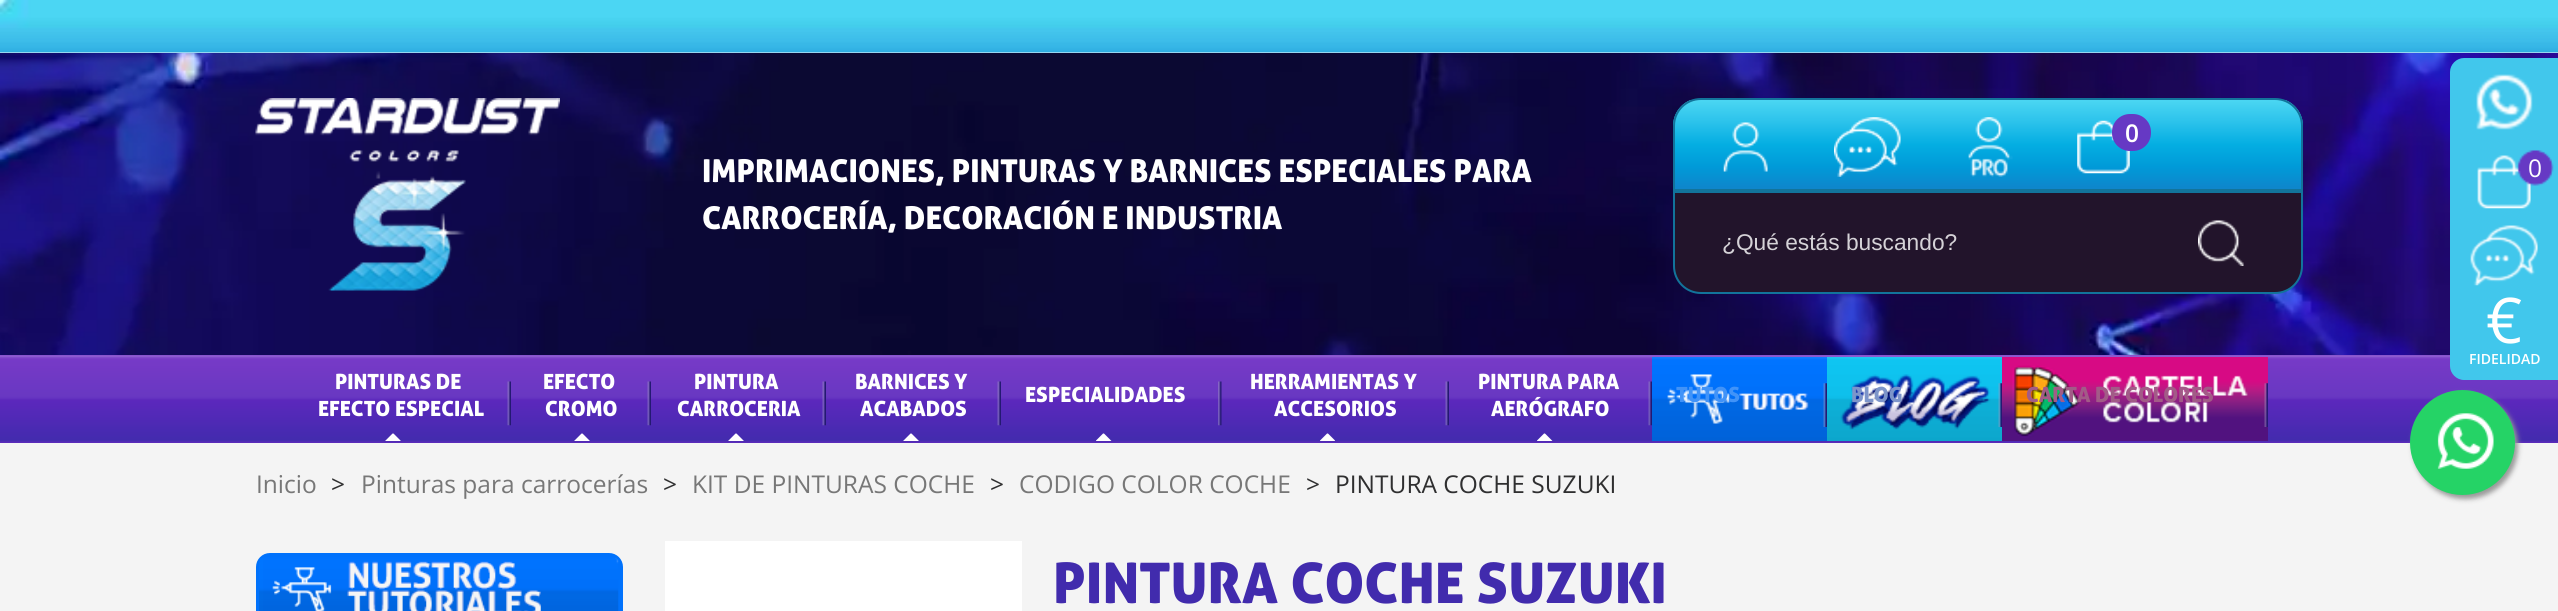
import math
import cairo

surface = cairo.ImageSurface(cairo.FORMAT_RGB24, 2558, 611)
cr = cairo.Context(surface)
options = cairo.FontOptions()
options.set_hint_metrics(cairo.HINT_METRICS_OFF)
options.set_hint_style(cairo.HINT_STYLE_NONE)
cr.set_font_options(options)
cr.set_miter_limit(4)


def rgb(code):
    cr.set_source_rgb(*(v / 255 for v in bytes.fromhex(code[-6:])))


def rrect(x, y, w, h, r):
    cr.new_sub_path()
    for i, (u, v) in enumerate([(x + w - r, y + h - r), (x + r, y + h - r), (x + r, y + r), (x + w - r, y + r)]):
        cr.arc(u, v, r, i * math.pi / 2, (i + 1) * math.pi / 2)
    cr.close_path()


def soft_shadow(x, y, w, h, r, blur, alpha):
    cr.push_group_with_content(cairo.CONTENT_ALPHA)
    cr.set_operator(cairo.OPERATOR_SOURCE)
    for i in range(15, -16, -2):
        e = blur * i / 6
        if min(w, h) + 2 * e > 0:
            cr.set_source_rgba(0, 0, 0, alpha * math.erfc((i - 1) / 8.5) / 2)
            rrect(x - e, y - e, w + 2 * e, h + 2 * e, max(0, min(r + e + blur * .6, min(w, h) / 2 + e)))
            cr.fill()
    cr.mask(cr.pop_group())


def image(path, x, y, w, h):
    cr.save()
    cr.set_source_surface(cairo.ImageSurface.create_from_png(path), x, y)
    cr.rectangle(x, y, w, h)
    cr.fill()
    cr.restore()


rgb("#f4f4f4")
cr.paint()
image("img/1.png", 0, 53, 2558, 302)
rgb("#ffffff")
cr.rectangle(0, 52, 2558, 1)
cr.fill()
image("img/2.png", 0, 0, 2558, 53)
image("img/3.png", 255, 98, 305, 193)
cr.save()
cr.new_path()
cr.move_to(1701, 98)
cr.line_to(2275, 98)
cr.curve_to(2290.5, 98, 2303, 110.5, 2303, 126)
cr.line_to(2303, 191)
cr.line_to(1673, 191)
cr.line_to(1673, 126)
cr.curve_to(1673, 110.5, 1685.5, 98, 1701, 98)
cr.close_path()
cr.clip()
gradient = cairo.LinearGradient(1988, 100, 1988, 189)
gradient.add_color_stop_rgba(0, 0.294, 0.839, 0.949, 1)
gradient.add_color_stop_rgba(0.25, 0.169, 0.761, 0.922, 1)
gradient.add_color_stop_rgba(0.5, 0.016, 0.682, 0.886, 1)
gradient.add_color_stop_rgba(0.75, 0, 0.604, 0.847, 1)
gradient.add_color_stop_rgba(1, 0.059, 0.522, 0.796, 1)
cr.set_source(gradient)
cr.rectangle(1673, 100, 630, 89)
cr.fill()
cr.restore()
cr.new_path()
cr.move_to(1701, 99)
cr.line_to(2275, 99)
cr.curve_to(2290, 99, 2302, 111, 2302, 126)
cr.line_to(2302, 190)
cr.line_to(1674, 190)
cr.line_to(1674, 126)
cr.curve_to(1674, 111, 1686, 99, 1701, 99)
cr.close_path()
rgb("#12749b")
cr.stroke()
image("img/4.png", 1723, 122, 45, 50)
image("img/5.png", 1834, 117, 67, 60)
image("img/6.png", 1968, 117, 45, 60)
image("img/7.png", 2077, 120, 53, 54)
rgb("#6639c4")
rrect(2112, 114, 39, 37, 18)
cr.fill()
rgb("#22142b")
cr.new_path()
cr.move_to(1674, 192)
cr.line_to(2302, 192)
cr.line_to(2302, 266)
cr.curve_to(2302, 281, 2290, 293, 2275, 293)
cr.line_to(1701, 293)
cr.curve_to(1686, 293, 1674, 281, 1674, 266)
cr.close_path()
cr.fill_preserve()
rgb("#12749b")
cr.stroke()
image("img/8.png", 2198, 220, 46, 46)
rgb("#6d2bc3")
cr.rectangle(0, 355, 2558, 88)
cr.fill()
image("img/9.png", 0, 355, 2558, 88)
image("img/10.png", 507, 381, 4, 45)
image("img/11.png", 385, 433, 16, 8)
image("img/10.png", 647, 381, 4, 45)
image("img/12.png", 574, 433, 16, 8)
image("img/10.png", 822, 381, 4, 45)
image("img/13.png", 728, 433, 16, 8)
image("img/14.png", 997, 381, 4, 45)
image("img/15.png", 903, 433, 16, 8)
image("img/16.png", 1218, 381, 4, 45)
image("img/17.png", 1096, 433, 16, 8)
image("img/14.png", 1445, 381, 4, 45)
image("img/18.png", 1320, 433, 15, 8)
image("img/10.png", 1648, 381, 4, 45)
image("img/17.png", 1537, 433, 16, 8)
image("img/19.png", 1652, 357, 175, 84)
image("img/20.png", 1823, 383, 4, 44)
image("img/21.png", 1827, 357, 175, 84)
image("img/22.png", 1998, 383, 4, 44)
image("img/23.png", 2002, 357, 266, 84)
image("img/24.png", 2264, 383, 4, 44)
rrect(258, 555, 363, 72, 12)
rgb("#0072fc")
cr.set_line_width(4)
cr.stroke()
image("img/25.png", 259, 557, 360, 54)
rgb("#ffffff")
cr.rectangle(665, 541, 357, 70)
cr.fill()
rgb("#41c7ec")
cr.new_path()
cr.move_to(2464, 58)
cr.line_to(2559, 58)
cr.line_to(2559, 380)
cr.line_to(2464, 380)
cr.curve_to(2456.5, 380, 2450, 373.5, 2450, 366)
cr.line_to(2450, 72)
cr.curve_to(2450, 64.5, 2456.5, 58, 2464, 58)
cr.close_path()
cr.fill()
image("img/26.png", 2476, 74, 57, 56)
image("img/27.png", 2477, 155, 54, 54)
image("img/28.png", 2517, 150, 37, 36)
image("img/29.png", 2470, 225, 68, 61)
rgb("#999999")
soft_shadow(2413, 394, 105, 105, 52.5, 2.5, 1)
rgb("#25d366")
cr.arc(2462.5, 442.5, 52.5, 0, 2 * math.pi)
cr.fill()
image("img/30.png", 2437, 413, 57, 56)
cr.select_font_face("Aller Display")
cr.set_font_size(31.5)
rgb("#ffffff")
cr.move_to(702, 182)
cr.show_text("IMPRIMACIONES, PINTURAS Y BARNICES ESPECIALES PARA")
cr.move_to(702, 229)
cr.show_text("CARROCERÍA, DECORACIÓN E INDUSTRIA")
cr.select_font_face("Open Sans SemiBold")
cr.set_font_size(24.5)
cr.move_to(2125, 142)
cr.show_text("0")
cr.select_font_face("Liberation Sans")
cr.set_font_size(22.75)
rgb("#d5d2d7")
cr.move_to(1722, 250)
cr.show_text("¿Qué estás buscando?")
cr.select_font_face("Aller Display")
cr.set_font_size(21)
rgb("#ffffff")
for x, y, s in [
    (335, 389, "PINTURAS DE"),
    (318, 416, "EFECTO ESPECIAL"),
    (543, 389, "EFECTO"),
    (545, 416, "CROMO"),
    (694, 389, "PINTURA"),
    (677, 416, "CARROCERIA"),
    (855, 389, "BARNICES Y"),
    (860, 416, "ACABADOS"),
    (1025, 402, "ESPECIALIDADES"),
    (1250, 389, "HERRAMIENTAS Y"),
    (1274, 416, "ACCESORIOS"),
    (1478, 389, "PINTURA PARA"),
    (1491, 416, "AERÓGRAFO"),
]:
    cr.move_to(x, y)
    cr.show_text(s)
rgb("#4193f8")
cr.move_to(1676, 402)
cr.show_text("TUTOS")
rgb("#7d95ca")
cr.move_to(1851, 402)
cr.show_text("BLOG")
rgb("#a25b87")
cr.move_to(2026, 402)
cr.show_text("CARTA DE COLORES")
cr.select_font_face("Open Sans")
cr.set_font_size(24.5)
rgb("#777777")
cr.move_to(256, 493)
cr.show_text("Inicio")
rgb("#2f2f30")
cr.move_to(331, 493)
cr.show_text(">")
rgb("#777777")
cr.move_to(361, 493)
cr.show_text("Pinturas para carrocerías")
rgb("#2f2f30")
cr.move_to(663, 493)
cr.show_text(">")
rgb("#777777")
cr.move_to(692, 493)
cr.show_text("KIT DE PINTURAS COCHE")
rgb("#2f2f30")
cr.move_to(990, 493)
cr.show_text(">")
rgb("#777777")
cr.move_to(1019, 493)
cr.show_text("CODIGO COLOR COCHE")
rgb("#2f2f30")
cr.move_to(1306, 493)
cr.show_text(">")
cr.move_to(1335, 493)
cr.show_text("PINTURA COCHE SUZUKI")
cr.select_font_face("Aller Display")
cr.set_font_size(56)
rgb("#412bad")
cr.move_to(1053, 603)
cr.show_text("PINTURA COCHE SUZUKI")
cr.select_font_face("Open Sans")
cr.set_font_size(24.5)
rgb("#ffffff")
cr.move_to(2528, 177)
cr.show_text("0")
cr.set_font_size(63)
cr.move_to(2486, 343)
cr.show_text("€")
cr.select_font_face("Open Sans SemiBold")
cr.set_font_size(14)
cr.move_to(2469, 364)
cr.show_text("FIDELIDAD")
surface.write_to_png("page.png")
